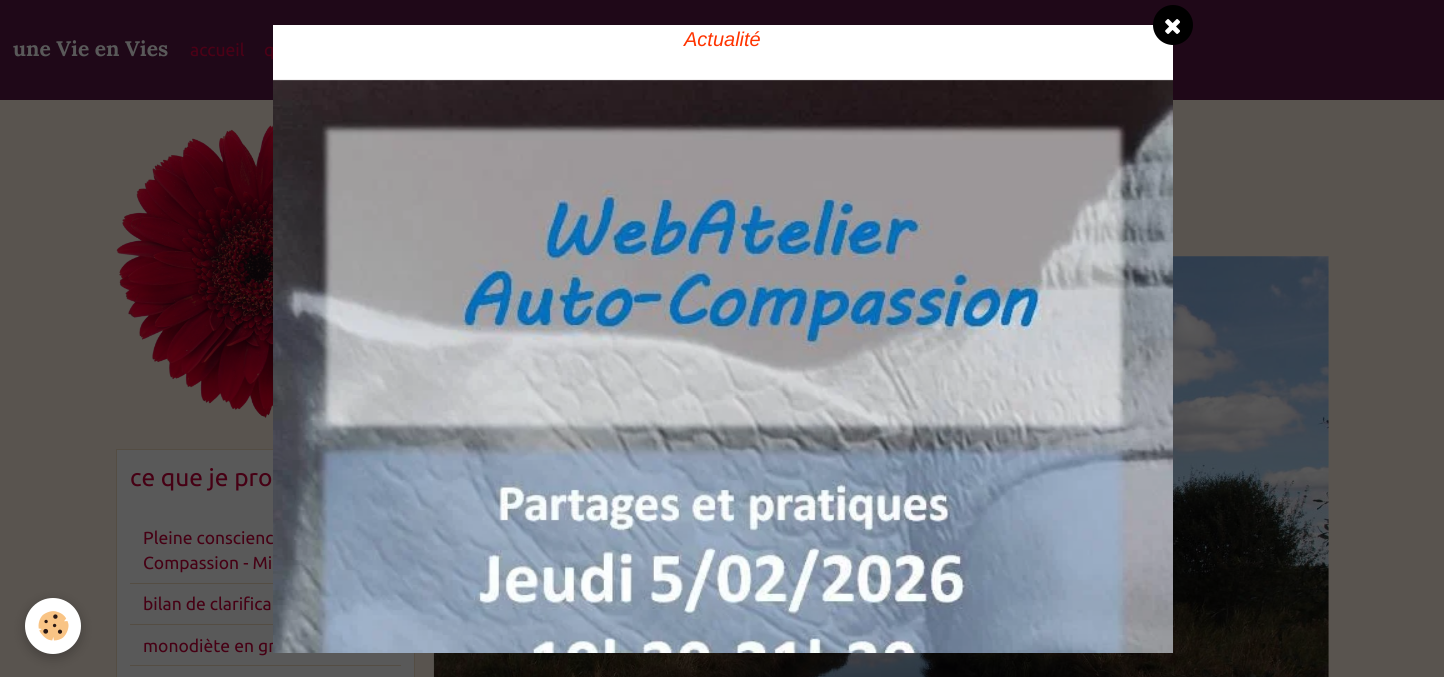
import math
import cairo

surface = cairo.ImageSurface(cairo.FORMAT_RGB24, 1444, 677)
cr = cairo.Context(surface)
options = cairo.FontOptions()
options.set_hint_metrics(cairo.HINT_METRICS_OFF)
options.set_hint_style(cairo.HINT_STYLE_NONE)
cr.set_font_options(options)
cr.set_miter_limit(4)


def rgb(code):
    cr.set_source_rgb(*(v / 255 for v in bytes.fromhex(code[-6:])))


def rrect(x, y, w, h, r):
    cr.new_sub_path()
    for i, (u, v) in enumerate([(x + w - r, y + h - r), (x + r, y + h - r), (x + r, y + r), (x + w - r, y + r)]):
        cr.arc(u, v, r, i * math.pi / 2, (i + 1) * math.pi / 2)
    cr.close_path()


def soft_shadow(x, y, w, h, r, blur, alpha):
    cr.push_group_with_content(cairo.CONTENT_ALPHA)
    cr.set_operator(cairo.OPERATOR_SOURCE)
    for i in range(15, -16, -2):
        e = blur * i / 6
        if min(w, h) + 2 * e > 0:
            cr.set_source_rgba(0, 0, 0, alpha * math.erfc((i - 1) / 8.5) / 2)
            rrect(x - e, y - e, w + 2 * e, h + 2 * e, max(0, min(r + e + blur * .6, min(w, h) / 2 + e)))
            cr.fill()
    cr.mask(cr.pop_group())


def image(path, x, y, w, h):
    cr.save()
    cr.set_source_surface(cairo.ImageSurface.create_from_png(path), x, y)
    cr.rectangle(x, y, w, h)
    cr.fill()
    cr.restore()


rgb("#59544f")
cr.paint()
rgb("#1f0818")
cr.rectangle(0, 0, 1444, 100)
cr.fill()
rgb("#000000")
soft_shadow(25, 601, 56, 57, 28, 6, 0.24)
rgb("#ffffff")
cr.arc(53, 626, 28, 0, 2 * math.pi)
cr.fill()
image("img/3.png", 38, 611, 31, 30)
image("img/4.png", 116, 125, 157, 293)
rgb("#595959")
cr.rectangle(116.5, 449.5, 298, 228)
cr.fill_preserve()
rgb("#544d43")
cr.set_line_width(1)
cr.stroke()
for x, y, w, h, color in [
    (130, 583, 143, 1, "#544d43"),
    (130, 624, 143, 1, "#544d43"),
    (130, 665, 271, 1, "#544d43"),
]:
    rgb(color)
    cr.rectangle(x, y, w, h)
    cr.fill()
image("img/5.png", 433, 256, 896, 421)
cr.select_font_face("Lora", cairo.FONT_SLANT_NORMAL, cairo.FONT_WEIGHT_BOLD)
cr.set_font_size(21)
rgb("#595959")
cr.move_to(13, 56)
cr.show_text("une Vie en Vies")
cr.select_font_face("Ubuntu")
cr.set_font_size(17.5)
rgb("#4c0016")
cr.move_to(190, 56)
cr.show_text("accueil")
cr.move_to(264, 56)
cr.show_text("q")
rgb("#ffffff")
cr.rectangle(273, 25, 900, 56)
cr.fill()
cr.select_font_face("Liberation Sans", cairo.FONT_SLANT_ITALIC)
cr.set_font_size(20)
rgb("#ff3300")
cr.move_to(684, 46)
cr.show_text("Actualité")
rgb("#000000")
cr.new_path()
cr.arc(1173, 25, 20, 0, 2 * math.pi)
cr.fill()
image("img/2.png", 1165, 19, 15, 15)
cr.select_font_face("Ubuntu")
cr.set_font_size(24.5)
rgb("#460014")
cr.move_to(130, 486)
cr.show_text("ce que je pro")
cr.set_font_size(17.5)
for x, y, s in [
    (143, 544, "Pleine conscienc"),
    (143, 569, "Compassion - Mi"),
    (143, 610, "bilan de clarifica"),
    (143, 652, "monodiète en gr"),
]:
    cr.move_to(x, y)
    cr.show_text(s)
image("img/1.png", 273, 79, 900, 574)
surface.write_to_png("page.png")
